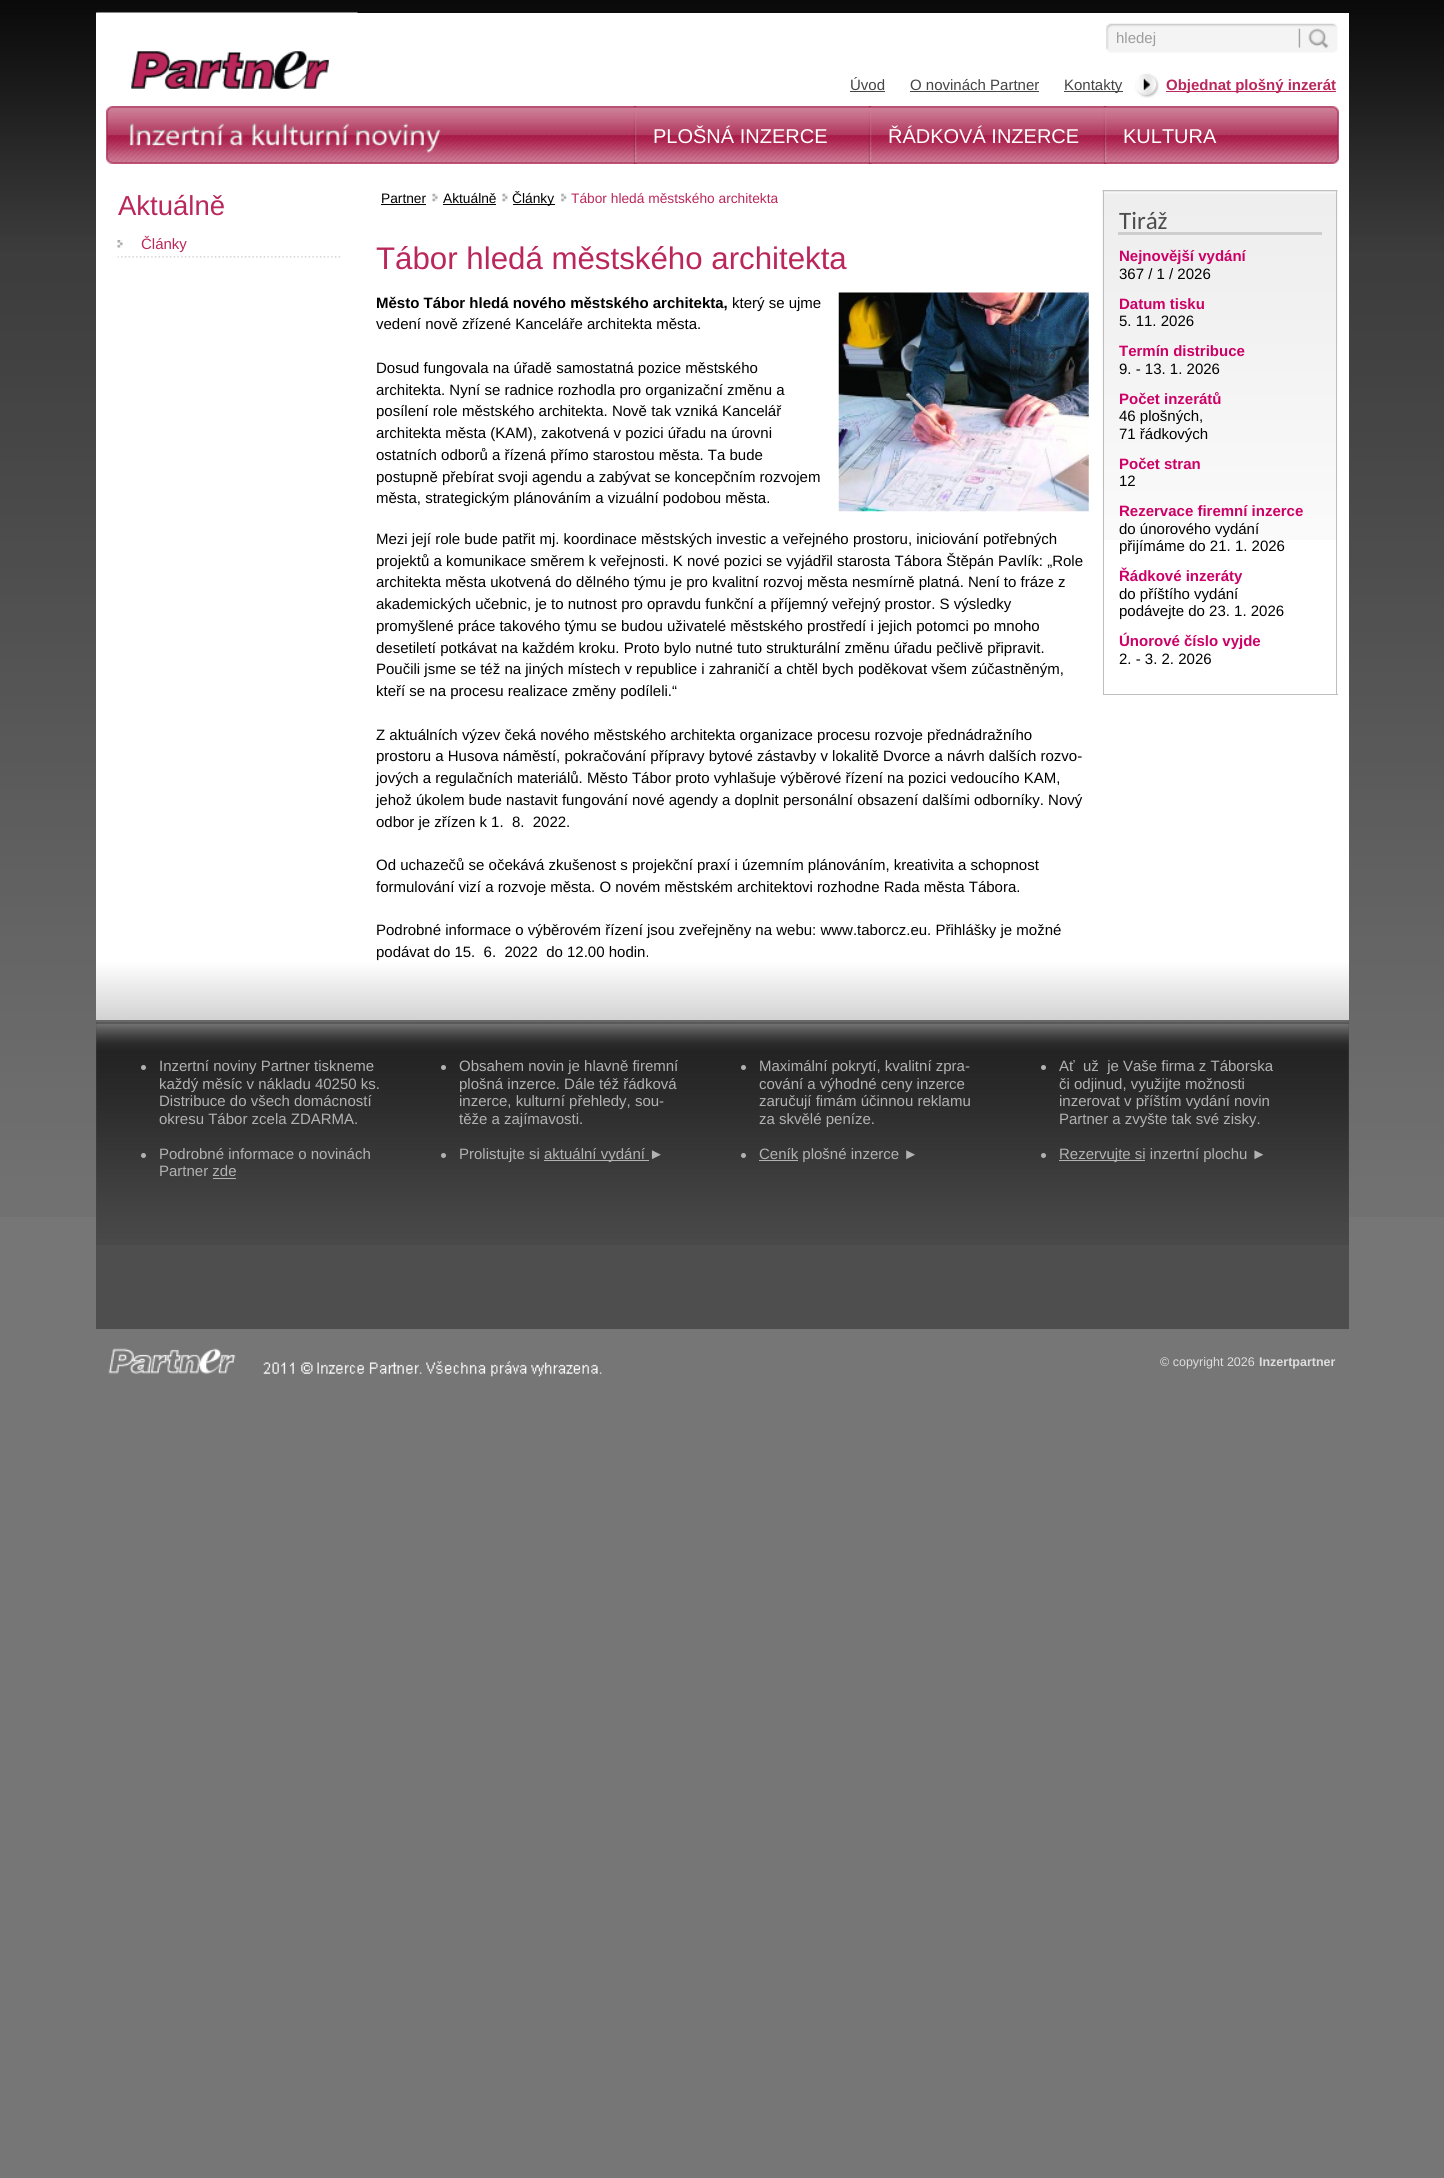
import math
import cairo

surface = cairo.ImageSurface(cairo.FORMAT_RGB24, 1444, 2178)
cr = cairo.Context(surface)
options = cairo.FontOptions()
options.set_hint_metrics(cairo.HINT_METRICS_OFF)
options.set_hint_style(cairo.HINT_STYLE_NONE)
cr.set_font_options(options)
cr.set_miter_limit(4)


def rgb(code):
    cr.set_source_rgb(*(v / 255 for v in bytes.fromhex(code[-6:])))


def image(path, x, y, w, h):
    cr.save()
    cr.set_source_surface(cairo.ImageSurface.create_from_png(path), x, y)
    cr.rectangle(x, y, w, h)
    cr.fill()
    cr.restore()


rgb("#767676")
cr.paint()
image("img/1.png", 0, 0, 1444, 1217)
rgb("#ffffff")
cr.rectangle(96, 13, 1253, 167)
cr.fill()
image("img/2.png", 96, 12, 262, 77)
image("img/3.png", 1106, 23, 232, 30)
for x, y, w, h, color in [
    (850, 91, 35, 1, "#444444"),
    (910, 91, 129, 1, "#444444"),
    (1064, 91, 59, 1, "#444444"),
]:
    rgb(color)
    cr.rectangle(x, y, w, h)
    cr.fill()
image("img/4.png", 1135, 73, 24, 25)
rgb("#ba275b")
cr.rectangle(1166, 91, 170, 1)
cr.fill()
image("img/5.png", 106, 106, 1233, 58)
image("img/6.png", 633, 106, 4, 58)
image("img/6.png", 868, 106, 4, 58)
image("img/6.png", 1103, 106, 4, 58)
gradient = cairo.LinearGradient(723, 180, 723, 1020)
gradient.add_color_stop_rgba(0.93, 1, 1, 1, 1)
gradient.add_color_stop_rgba(1, 0.824, 0.824, 0.824, 1)
cr.set_source(gradient)
cr.rectangle(96, 180, 1253, 840)
cr.fill()
image("img/7.png", 117, 256, 224, 2)
image("img/8.png", 117, 240, 6, 8)
rgb("#000000")
cr.rectangle(381, 204, 45, 1)
cr.fill()
image("img/9.png", 432, 193, 6, 9)
cr.rectangle(443, 204, 53, 1)
cr.fill()
image("img/9.png", 502, 193, 6, 9)
cr.rectangle(513, 204, 42, 1)
cr.fill()
image("img/10.png", 561, 193, 6, 9)
image("img/11.png", 838, 292, 251, 220)
image("img/12.png", 1102, 190, 236, 350)
for x, y, w, h, color in [
    (1336, 190, 1, 505, "#bebebe"),
    (1103, 694, 235, 1, "#bebebe"),
    (1103, 190, 1, 505, "#bebebe"),
    (1118, 232, 204, 3, "#cecece"),
    (96, 1020, 1253, 309, "#4e4e4e"),
]:
    rgb(color)
    cr.rectangle(x, y, w, h)
    cr.fill()
image("img/13.png", 96, 1020, 1253, 225)
rgb("#b2b2b2")
cr.arc(143.5, 1067.5, 2.5, 0, 2 * math.pi)
cr.fill()
cr.arc(143.5, 1155.5, 2.5, 0, 2 * math.pi)
cr.fill()
cr.rectangle(213, 1178, 23, 1)
cr.fill()
cr.arc(443.5, 1067.5, 2.5, 0, 2 * math.pi)
cr.fill()
cr.arc(443.5, 1155.5, 2.5, 0, 2 * math.pi)
cr.fill()
cr.rectangle(544, 1160, 105, 1)
cr.fill()
cr.arc(743.5, 1067.5, 2.5, 0, 2 * math.pi)
cr.fill()
cr.arc(743.5, 1155.5, 2.5, 0, 2 * math.pi)
cr.fill()
cr.rectangle(759, 1160, 39, 1)
cr.fill()
cr.arc(1043.5, 1067.5, 2.5, 0, 2 * math.pi)
cr.fill()
cr.arc(1043.5, 1155.5, 2.5, 0, 2 * math.pi)
cr.fill()
cr.rectangle(1059, 1160, 86, 1)
cr.fill()
image("img/14.png", 108, 1348, 494, 29)
cr.select_font_face("Liberation Sans")
cr.set_font_size(15)
rgb("#9d9d9d")
cr.move_to(1116, 43)
cr.show_text("hledej")
rgb("#444444")
for x, y, s in [
    (850, 90, "Úvod"),
    (910, 90, "O novinách Partner"),
    (1064, 90, "Kontakty"),
]:
    cr.move_to(x, y)
    cr.show_text(s)
cr.select_font_face("Liberation Sans", cairo.FONT_SLANT_NORMAL, cairo.FONT_WEIGHT_BOLD)
rgb("#ba275b")
cr.move_to(1166, 90)
cr.show_text("Objednat plošný inzerát")
cr.select_font_face("Liberation Sans")
cr.set_font_size(20)
rgb("#ffffff")
for x, y, s in [
    (653, 143, "PLOŠNÁ INZERCE"),
    (888, 143, "ŘÁDKOVÁ INZERCE"),
    (1123, 143, "KULTURA"),
]:
    cr.move_to(x, y)
    cr.show_text(s)
cr.set_font_size(27.5)
rgb("#ba275b")
cr.move_to(118, 215)
cr.show_text("Aktuálně")
cr.set_font_size(15)
cr.move_to(141, 249)
cr.show_text("Články")
cr.set_font_size(13.75)
rgb("#000000")
for x, y, s in [
    (381, 203, "Partner"),
    (443, 203, "Aktuálně"),
    (512, 203, "Články"),
]:
    cr.move_to(x, y)
    cr.show_text(s)
rgb("#ba275b")
cr.move_to(571, 203)
cr.show_text("Tábor hledá městského architekta")
cr.set_font_size(31.25)
cr.move_to(376, 269)
cr.show_text("Tábor hledá městského architekta")
cr.select_font_face("Liberation Sans", cairo.FONT_SLANT_NORMAL, cairo.FONT_WEIGHT_BOLD)
cr.set_font_size(15)
rgb("#000000")
cr.move_to(376, 308)
cr.show_text("Město Tábor hledá nového městského architekta,")
cr.select_font_face("Liberation Sans")
for x, y, s in [
    (732, 308, "který se ujme"),
    (376, 329, "vedení nově zřízené Kanceláře architekta města."),
    (376, 373, "Dosud fungovala na úřadě samostatná pozice městského"),
    (376, 395, "architekta. Nyní se radnice rozhodla pro organizační změnu a"),
    (376, 416, "posílení role městského architekta. Nově tak vzniká Kancelář"),
    (376, 438, "architekta města (KAM), zakotvená v pozici úřadu na úrovni"),
    (376, 460, "ostatních odborů a řízená přímo starostou města. Ta bude"),
    (376, 482, "postupně přebírat svoji agendu a zabývat se koncepčním rozvojem"),
    (376, 503, "města, strategickým plánováním a vizuální podobou města."),
    (376, 544, "Mezi její role bude patřit mj. koordinace městských investic a veřejného prostoru, iniciování potřebných"),
    (376, 566, "projektů a komunikace směrem k veřejnosti. K nové pozici se vyjádřil starosta Tábora Štěpán Pavlík: „Role"),
    (376, 587, "architekta města ukotvená do dělného týmu je pro kvalitní rozvoj města nesmírně platná. Není to fráze z"),
    (376, 609, "akademických učebnic, je to nutnost pro opravdu funkční a příjemný veřejný prostor. S výsledky"),
    (376, 631, "promyšlené práce takového týmu se budou uživatelé městského prostředí i jejich potomci po mnoho"),
    (376, 653, "desetiletí potkávat na každém kroku. Proto bylo nutné tuto strukturální změnu úřadu pečlivě připravit."),
    (376, 674, "Poučili jsme se též na jiných místech v republice i zahraničí a chtěl bych poděkovat všem zúčastněným,"),
    (376, 696, "kteří se na procesu realizace změny podíleli.“"),
    (376, 740, "Z aktuálních výzev čeká nového městského architekta organizace procesu rozvoje přednádražního"),
    (376, 761, "prostoru a Husova náměstí, pokračování přípravy bytové zástavby v lokalitě Dvorce a návrh dalších rozvo-"),
    (376, 783, "jových a regulačních materiálů. Město Tábor proto vyhlašuje výběrové řízení na pozici vedoucího KAM,"),
    (376, 805, "jehož úkolem bude nastavit fungování nové agendy a doplnit personální obsazení dalšími odborníky. Nový"),
    (376, 827, "odbor je zřízen k 1.  8.  2022."),
    (376, 870, "Od uchazečů se očekává zkušenost s projekční praxí i územním plánováním, kreativita a schopnost"),
    (376, 892, "formulování vizí a rozvoje města. O novém městském architektovi rozhodne Rada města Tábora."),
    (376, 935, "Podrobné informace o výběrovém řízení jsou zveřejněny na webu: www.taborcz.eu. Přihlášky je možné"),
    (376, 957, "podávat do 15.  6.  2022  do 12.00 hodin."),
]:
    cr.move_to(x, y)
    cr.show_text(s)
cr.select_font_face("Carlito")
cr.set_font_size(25)
rgb("#4d4d4d")
cr.move_to(1119, 229)
cr.show_text("Tiráž")
cr.select_font_face("Liberation Sans", cairo.FONT_SLANT_NORMAL, cairo.FONT_WEIGHT_BOLD)
cr.set_font_size(15)
rgb("#cc0066")
cr.move_to(1119, 261)
cr.show_text("Nejnovější vydání")
cr.select_font_face("Liberation Sans")
rgb("#000000")
cr.move_to(1119, 279)
cr.show_text("367 / 1 / 2026")
cr.select_font_face("Liberation Sans", cairo.FONT_SLANT_NORMAL, cairo.FONT_WEIGHT_BOLD)
rgb("#cc0066")
cr.move_to(1119, 309)
cr.show_text("Datum tisku")
cr.select_font_face("Liberation Sans")
rgb("#000000")
cr.move_to(1119, 326)
cr.show_text("5. 11. 2026")
cr.select_font_face("Liberation Sans", cairo.FONT_SLANT_NORMAL, cairo.FONT_WEIGHT_BOLD)
rgb("#cc0066")
cr.move_to(1119, 356)
cr.show_text("Termín distribuce")
cr.select_font_face("Liberation Sans")
rgb("#000000")
cr.move_to(1119, 374)
cr.show_text("9. - 13. 1. 2026")
cr.select_font_face("Liberation Sans", cairo.FONT_SLANT_NORMAL, cairo.FONT_WEIGHT_BOLD)
rgb("#cc0066")
cr.move_to(1119, 404)
cr.show_text("Počet inzerátů")
cr.select_font_face("Liberation Sans")
rgb("#000000")
cr.move_to(1119, 421)
cr.show_text("46 plošných,")
cr.move_to(1119, 439)
cr.show_text("71 řádkových")
cr.select_font_face("Liberation Sans", cairo.FONT_SLANT_NORMAL, cairo.FONT_WEIGHT_BOLD)
rgb("#cc0066")
cr.move_to(1119, 469)
cr.show_text("Počet stran")
cr.select_font_face("Liberation Sans")
rgb("#000000")
cr.move_to(1119, 486)
cr.show_text("12")
cr.select_font_face("Liberation Sans", cairo.FONT_SLANT_NORMAL, cairo.FONT_WEIGHT_BOLD)
rgb("#cc0066")
cr.move_to(1119, 516)
cr.show_text("Rezervace firemní inzerce")
cr.select_font_face("Liberation Sans")
rgb("#000000")
cr.move_to(1119, 534)
cr.show_text("do únorového vydání")
cr.move_to(1119, 551)
cr.show_text("přijímáme do 21. 1. 2026")
cr.select_font_face("Liberation Sans", cairo.FONT_SLANT_NORMAL, cairo.FONT_WEIGHT_BOLD)
rgb("#cc0066")
cr.move_to(1119, 581)
cr.show_text("Řádkové inzeráty")
cr.select_font_face("Liberation Sans")
rgb("#000000")
cr.move_to(1119, 599)
cr.show_text("do příštího vydání")
cr.move_to(1119, 616)
cr.show_text("podávejte do 23. 1. 2026")
cr.select_font_face("Liberation Sans", cairo.FONT_SLANT_NORMAL, cairo.FONT_WEIGHT_BOLD)
rgb("#cc0066")
cr.move_to(1119, 646)
cr.show_text("Únorové číslo vyjde")
cr.select_font_face("Liberation Sans")
rgb("#000000")
cr.move_to(1119, 664)
cr.show_text("2. - 3. 2. 2026")
rgb("#b2b2b2")
for x, y, s in [
    (159, 1071, "Inzertní noviny Partner tiskneme"),
    (159, 1089, "každý měsíc v nákladu 40250 ks."),
    (159, 1106, "Distribuce do všech domácností"),
    (159, 1124, "okresu Tábor zcela ZDARMA."),
    (159, 1159, "Podrobné informace o novinách"),
    (159, 1176, "Partner zde"),
    (459, 1071, "Obsahem novin je hlavně firemní"),
    (459, 1089, "plošná inzerce. Dále též řádková"),
    (459, 1106, "inzerce, kulturní přehledy, sou-"),
    (459, 1124, "těže a zajímavosti."),
    (459, 1159, "Prolistujte si"),
    (544, 1159, "aktuální vydání ►"),
    (759, 1071, "Maximální pokrytí, kvalitní zpra-"),
    (759, 1089, "cování a výhodné ceny inzerce"),
    (759, 1106, "zaručují fimám účinnou reklamu"),
    (759, 1124, "za skvělé peníze."),
    (759, 1159, "Ceník plošné inzerce ►"),
    (1059, 1071, "Ať  už  je Vaše firma z Táborska"),
    (1059, 1089, "či odjinud, využijte možnosti"),
    (1059, 1106, "inzerovat v příštím vydání novin"),
    (1059, 1124, "Partner a zvyšte tak své zisky."),
    (1059, 1159, "Rezervujte si inzertní plochu ►"),
]:
    cr.move_to(x, y)
    cr.show_text(s)
cr.set_font_size(12.5)
rgb("#dddddd")
cr.move_to(1160, 1366)
cr.show_text("© copyright 2026")
cr.select_font_face("Liberation Sans", cairo.FONT_SLANT_NORMAL, cairo.FONT_WEIGHT_BOLD)
cr.move_to(1259, 1366)
cr.show_text("Inzertpartner")
surface.write_to_png("page.png")
